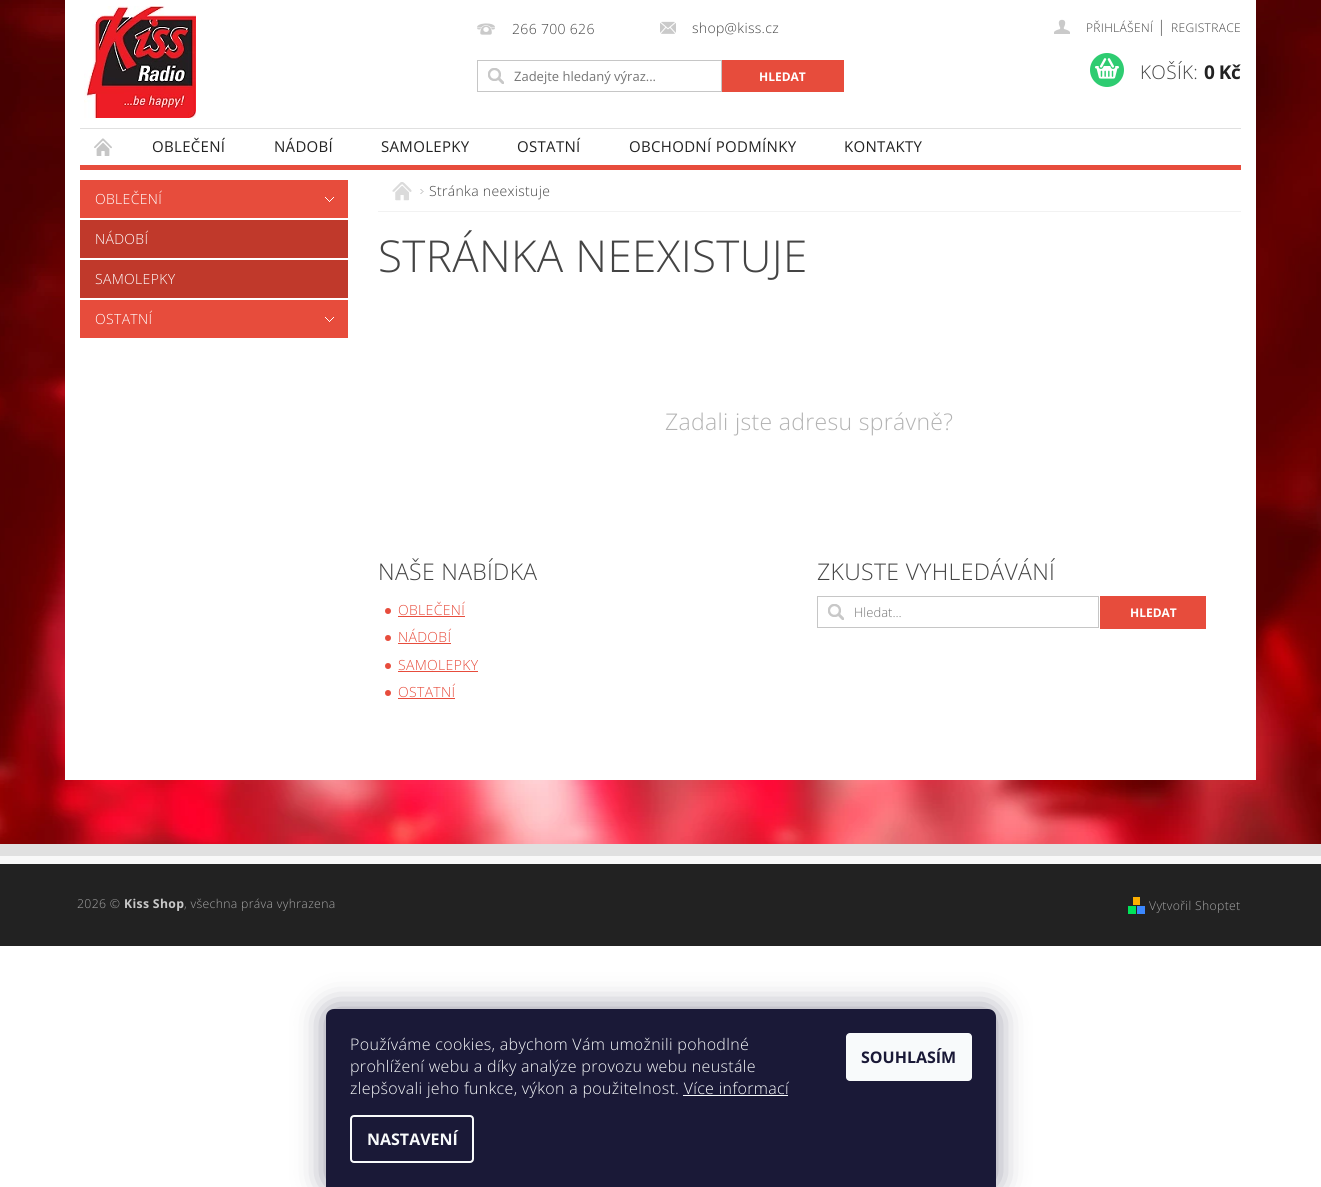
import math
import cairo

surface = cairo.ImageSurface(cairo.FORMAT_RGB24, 1321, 1187)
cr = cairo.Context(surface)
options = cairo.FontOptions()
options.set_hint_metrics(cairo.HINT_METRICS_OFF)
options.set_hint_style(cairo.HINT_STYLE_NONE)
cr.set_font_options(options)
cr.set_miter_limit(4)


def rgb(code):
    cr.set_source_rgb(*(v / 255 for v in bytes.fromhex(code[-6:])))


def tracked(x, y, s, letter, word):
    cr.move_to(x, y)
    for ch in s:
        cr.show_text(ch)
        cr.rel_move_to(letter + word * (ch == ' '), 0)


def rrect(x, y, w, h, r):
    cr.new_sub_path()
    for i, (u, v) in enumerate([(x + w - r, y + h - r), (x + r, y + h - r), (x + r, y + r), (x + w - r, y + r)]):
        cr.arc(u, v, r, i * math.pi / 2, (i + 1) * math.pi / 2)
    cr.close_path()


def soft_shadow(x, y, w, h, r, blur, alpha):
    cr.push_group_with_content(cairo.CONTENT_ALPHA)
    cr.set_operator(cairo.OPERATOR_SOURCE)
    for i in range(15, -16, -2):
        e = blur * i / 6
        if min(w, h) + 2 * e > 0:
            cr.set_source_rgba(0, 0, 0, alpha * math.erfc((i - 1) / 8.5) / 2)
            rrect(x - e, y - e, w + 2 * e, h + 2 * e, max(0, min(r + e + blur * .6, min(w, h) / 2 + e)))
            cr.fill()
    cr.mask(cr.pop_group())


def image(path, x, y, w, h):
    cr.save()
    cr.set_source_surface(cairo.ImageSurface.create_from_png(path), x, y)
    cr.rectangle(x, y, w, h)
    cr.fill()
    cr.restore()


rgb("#ffffff")
cr.paint()
image("img/1.png", 0, 0, 1321, 844)
rgb("#ffffff")
cr.rectangle(65, 0, 1191, 780)
cr.fill()
rgb("#e74c3c")
cr.rectangle(80, 165, 1161, 5)
cr.fill()
image("img/2.png", 84, 6, 112, 112)
image("img/3.png", 477, 23, 18, 12)
image("img/4.png", 660, 21, 16, 13)
image("img/5.png", 488, 68, 16, 16)
cr.rectangle(477.5, 60.5, 244, 31)
rgb("#c6c6c6")
cr.set_line_width(1)
cr.stroke()
rgb("#e74c3c")
cr.rectangle(722, 60, 122, 32)
cr.fill()
image("img/6.png", 1054, 19, 16, 15)
rgb("#2ecc71")
cr.arc(1107, 70, 17, 0, 2 * math.pi)
cr.fill()
image("img/7.png", 1095, 58, 24, 21)
rgb("#e0e0e0")
cr.rectangle(80, 128, 1161, 1)
cr.fill()
image("img/8.png", 94, 138, 18, 18)
rgb("#e74c3c")
cr.rectangle(80, 180, 268, 38)
cr.fill()
image("img/9.png", 325, 197, 9, 5)
for x, y, w, h, color in [
    (80, 220, 268, 38, "#c0392b"),
    (80, 260, 268, 38, "#c0392b"),
    (80, 300, 268, 38, "#e74c3c"),
]:
    rgb(color)
    cr.rectangle(x, y, w, h)
    cr.fill()
image("img/9.png", 325, 317, 9, 5)
rgb("#f2f2f2")
cr.rectangle(378, 211, 863, 1)
cr.fill()
image("img/10.png", 392, 182, 20, 19)
image("img/11.png", 420, 189, 4, 5)
rgb("#e74c3c")
cr.arc(388, 611, 3, 0, 2 * math.pi)
cr.fill()
cr.rectangle(398, 616, 67, 1)
cr.fill()
cr.arc(388, 638, 3, 0, 2 * math.pi)
cr.fill()
cr.rectangle(398, 643, 53, 1)
cr.fill()
cr.arc(388, 666, 3, 0, 2 * math.pi)
cr.fill()
cr.rectangle(398, 671, 80, 1)
cr.fill()
cr.arc(388, 693, 3, 0, 2 * math.pi)
cr.fill()
cr.rectangle(398, 698, 57, 1)
cr.fill()
image("img/5.png", 828, 604, 16, 16)
cr.rectangle(817.5, 596.5, 281, 31)
rgb("#c6c6c6")
cr.stroke()
for x, y, w, h, color in [
    (1100, 596, 106, 33, "#e74c3c"),
    (0, 856, 1321, 8, "#f8f8f8"),
    (0, 844, 1321, 12, "#e0e0e0"),
    (0, 864, 1321, 82, "#222222"),
    (1133, 897, 7, 8, "#fcaf00"),
    (1128, 906, 8, 8, "#00e25a"),
    (1137, 906, 8, 8, "#3b88ff"),
]:
    rgb(color)
    cr.rectangle(x, y, w, h)
    cr.fill()
rgb("#1b1939")
soft_shadow(326, 1009, 670, 178, 8, 15, 0.5)
rgb("#1a1937")
cr.new_path()
cr.move_to(334, 1009)
cr.line_to(988, 1009)
cr.curve_to(992.5, 1009, 996, 1012.5, 996, 1017)
cr.line_to(996, 1187)
cr.line_to(326, 1187)
cr.line_to(326, 1017)
cr.curve_to(326, 1012.5, 329.5, 1009, 334, 1009)
cr.close_path()
cr.fill()
rgb("#f8fafb")
cr.rectangle(683, 1095, 105, 1)
cr.fill()
rrect(351, 1116, 122, 46, 3)
cr.set_line_width(2)
cr.stroke()
rrect(846, 1033, 126, 48, 4)
cr.fill()
cr.select_font_face("Open Sans Light")
cr.set_font_size(14)
rgb("#444444")
tracked(512, 34, "266 700 626", 0.32, 0)
tracked(692, 33, "shop@kiss.cz", 0.32, 0)
cr.select_font_face("Open Sans")
cr.set_font_size(13)
rgb("#757575")
cr.move_to(514, 81)
cr.show_text("Zadejte hledaný výraz...")
cr.select_font_face("Open Sans", cairo.FONT_SLANT_NORMAL, cairo.FONT_WEIGHT_BOLD)
cr.set_font_size(12)
rgb("#ffffff")
cr.move_to(759, 81)
cr.show_text("HLEDAT")
cr.select_font_face("Open Sans Light")
rgb("#444444")
tracked(1086, 32, "PŘIHLÁŠENÍ", 0.32, 0)
cr.set_font_size(16)
tracked(1157, 32, "|", 0.32, 0)
cr.set_font_size(12)
tracked(1171, 32, "REGISTRACE", 0.32, 0)
cr.set_font_size(19)
tracked(1140, 79, "KOŠÍK:", 0.32, 0)
cr.select_font_face("Open Sans", cairo.FONT_SLANT_NORMAL, cairo.FONT_WEIGHT_BOLD)
rgb("#222222")
tracked(1204, 79, "0 Kč", -0.5, 0)
cr.select_font_face("Open Sans")
cr.set_font_size(15)
for x, y, s in [
    (152, 152, "OBLEČENÍ"),
    (274, 152, "NÁDOBÍ"),
    (381, 152, "SAMOLEPKY"),
    (517, 152, "OSTATNÍ"),
    (629, 152, "OBCHODNÍ PODMÍNKY"),
    (844, 152, "KONTAKTY"),
]:
    tracked(x, y, s, 0.32, 0)
cr.select_font_face("Open Sans Light")
cr.set_font_size(14)
rgb("#ffffff")
for x, y, s in [
    (95, 204, "OBLEČENÍ"),
    (95, 244, "NÁDOBÍ"),
    (95, 284, "SAMOLEPKY"),
    (95, 324, "OSTATNÍ"),
]:
    tracked(x, y, s, 0.32, 0)
rgb("#444444")
tracked(429, 196, "Stránka neexistuje", 0.32, 0)
cr.set_font_size(44)
tracked(378, 272, "STRÁNKA NEEXISTUJE", 0.32, 0)
cr.set_font_size(23)
rgb("#b3b3b3")
tracked(665, 430, "Zadali jste adresu správně?", 0.32, 0)
rgb("#444444")
tracked(378, 580, "NAŠE NABÍDKA", 0.32, 0)
cr.set_font_size(14)
rgb("#e74c3c")
for x, y, s in [
    (398, 615, "OBLEČENÍ"),
    (398, 642, "NÁDOBÍ"),
    (398, 670, "SAMOLEPKY"),
    (398, 697, "OSTATNÍ"),
]:
    tracked(x, y, s, 0.32, 0)
cr.set_font_size(23)
rgb("#444444")
tracked(817, 580, "ZKUSTE VYHLEDÁVÁNÍ", 0.32, 0)
cr.set_font_size(13)
rgb("#757575")
cr.move_to(854, 617)
cr.show_text("Hledat...")
cr.select_font_face("Open Sans", cairo.FONT_SLANT_NORMAL, cairo.FONT_WEIGHT_BOLD)
cr.set_font_size(12)
rgb("#ffffff")
cr.move_to(1130, 617)
cr.show_text("HLEDAT")
cr.select_font_face("Open Sans Light")
cr.set_font_size(12.25)
rgb("#a6a6a6")
tracked(77, 908, "2026 ©", 0.32, 0)
cr.select_font_face("Open Sans", cairo.FONT_SLANT_NORMAL, cairo.FONT_WEIGHT_BOLD)
rgb("#c9c9c9")
tracked(124, 908, "Kiss Shop", 0.32, 0)
cr.select_font_face("Open Sans Light")
rgb("#a6a6a6")
tracked(184, 908, ", všechna práva vyhrazena", 0.32, 0)
tracked(1149, 910, "Vytvořil Shoptet", 0.32, 0)
cr.set_font_size(16)
rgb("#f8fafb")
for x, y, s in [
    (350, 1050, "Používáme cookies, abychom Vám umožnili pohodlné"),
    (350, 1072, "prohlížení webu a díky analýze provozu webu neustále"),
    (350, 1094, "zlepšovali jeho funkce, výkon a použitelnost. Více informací"),
]:
    tracked(x, y, s, 0.32, 0)
cr.select_font_face("Open Sans", cairo.FONT_SLANT_NORMAL, cairo.FONT_WEIGHT_BOLD)
cr.move_to(367, 1145)
cr.show_text("NASTAVENÍ")
rgb("#1a1937")
cr.move_to(861, 1063)
cr.show_text("SOUHLASÍM")
surface.write_to_png("page.png")
